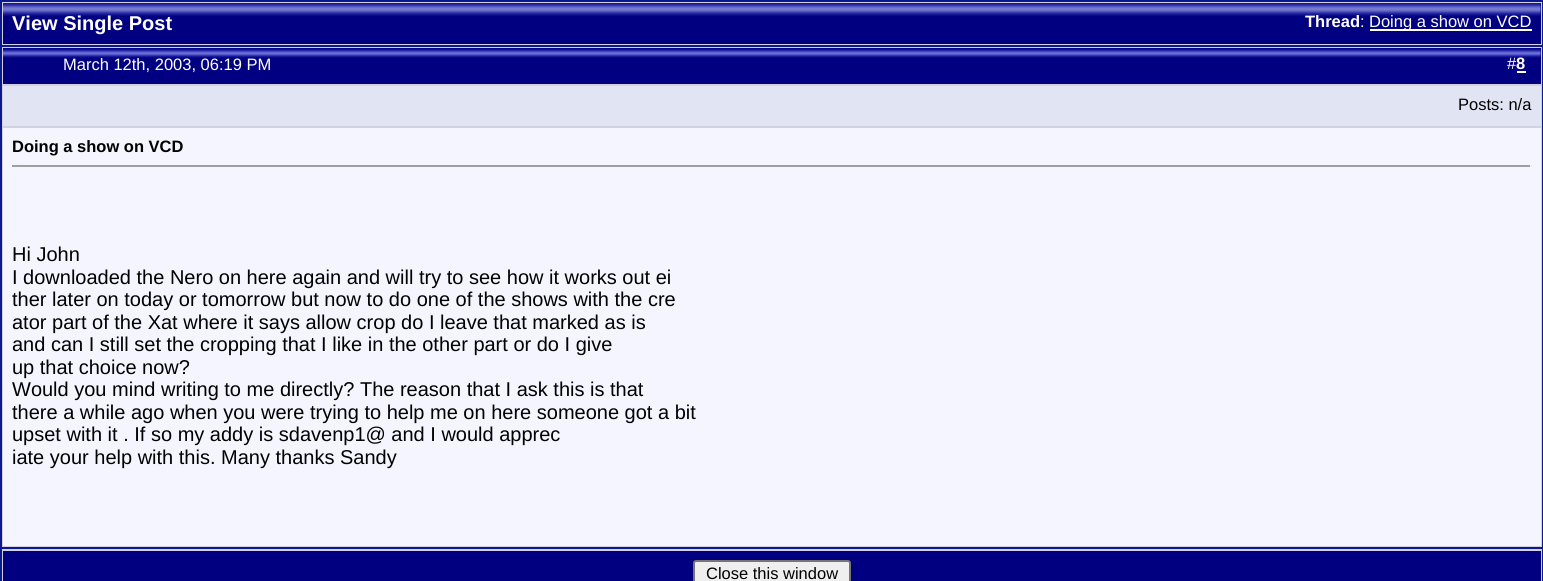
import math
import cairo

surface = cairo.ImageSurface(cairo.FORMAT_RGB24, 1543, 581)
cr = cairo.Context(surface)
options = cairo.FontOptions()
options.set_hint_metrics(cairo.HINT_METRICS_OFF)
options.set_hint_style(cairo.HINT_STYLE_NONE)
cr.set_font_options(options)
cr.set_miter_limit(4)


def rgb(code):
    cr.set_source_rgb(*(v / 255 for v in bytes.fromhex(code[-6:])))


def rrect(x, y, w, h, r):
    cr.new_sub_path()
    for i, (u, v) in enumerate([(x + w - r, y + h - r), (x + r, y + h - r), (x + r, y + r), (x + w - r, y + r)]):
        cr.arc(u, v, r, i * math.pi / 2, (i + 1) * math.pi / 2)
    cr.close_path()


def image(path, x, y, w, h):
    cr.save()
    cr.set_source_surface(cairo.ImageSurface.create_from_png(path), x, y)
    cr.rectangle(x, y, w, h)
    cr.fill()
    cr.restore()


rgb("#d1d1e1")
cr.paint()
for x, y, w, h, color in [
    (0, 0, 1543, 2, "#0b198c"),
    (1542, 0, 1, 45, "#0b198c"),
    (0, 0, 2, 45, "#0b198c"),
    (3, 3, 1538, 41, "#000080"),
]:
    rgb(color)
    cr.rectangle(x, y, w, h)
    cr.fill()
image("img/1.png", 3, 3, 1538, 13)
rgb("#ffffff")
cr.rectangle(1370, 29, 162, 2)
cr.fill()
cr.rectangle(1, 46, 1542, 502)
rgb("#0b198c")
cr.stroke()
rgb("#000080")
cr.rectangle(3, 48, 1538, 36)
cr.fill()
image("img/2.png", 3, 48, 1538, 10)
for x, y, w, h, color in [
    (1517, 71, 9, 2, "#ffffff"),
    (3, 86, 1538, 40, "#e1e4f2"),
    (3, 128, 1538, 418, "#f5f5ff"),
    (12, 165, 1520, 2, "#9f9f9f"),
    (1530, 165, 2, 2, "#eeeeee"),
    (1542, 549, 1, 32, "#0b198c"),
    (0, 549, 2, 32, "#0b198c"),
    (3, 551, 1538, 30, "#000080"),
]:
    rgb(color)
    cr.rectangle(x, y, w, h)
    cr.fill()
rgb("#efefef")
rrect(694, 561, 156, 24, 2)
cr.fill_preserve()
rgb("#767676")
cr.stroke()
cr.select_font_face("Liberation Sans", cairo.FONT_SLANT_NORMAL, cairo.FONT_WEIGHT_BOLD)
cr.set_font_size(20)
rgb("#ffffff")
cr.move_to(12, 30)
cr.show_text("View Single Post")
cr.set_font_size(16.5)
cr.move_to(1305, 27)
cr.show_text("Thread")
cr.select_font_face("Liberation Sans")
for x, y, s in [
    (1360, 27, ":"),
    (1369, 27, "Doing a show on VCD"),
    (63, 70, "March 12th, 2003, 06:19 PM"),
    (1507, 69, "#"),
]:
    cr.move_to(x, y)
    cr.show_text(s)
cr.select_font_face("Liberation Sans", cairo.FONT_SLANT_NORMAL, cairo.FONT_WEIGHT_BOLD)
cr.move_to(1516, 69)
cr.show_text("8")
cr.select_font_face("Liberation Sans")
rgb("#000000")
cr.move_to(1458, 110)
cr.show_text("Posts: n/a")
cr.select_font_face("Liberation Sans", cairo.FONT_SLANT_NORMAL, cairo.FONT_WEIGHT_BOLD)
cr.move_to(12, 152)
cr.show_text("Doing a show on VCD")
cr.select_font_face("Liberation Sans")
cr.set_font_size(20)
for x, y, s in [
    (12, 261, "Hi John"),
    (12, 284, "I downloaded the Nero on here again and will try to see how it works out ei"),
    (12, 306, "ther later on today or tomorrow but now to do one of the shows with the cre"),
    (12, 329, "ator part of the Xat where it says allow crop do I leave that marked as is"),
    (12, 351, "and can I still set the cropping that I like in the other part or do I give"),
    (12, 374, "up that choice now?"),
    (12, 396, "Would you mind writing to me directly? The reason that I ask this is that"),
    (12, 419, "there a while ago when you were trying to help me on here someone got a bit"),
    (12, 441, "upset with it . If so my addy is sdavenp1@ and I would apprec"),
    (12, 464, "iate your help with this. Many thanks Sandy"),
]:
    cr.move_to(x, y)
    cr.show_text(s)
cr.set_font_size(16.5)
cr.move_to(706, 579)
cr.show_text("Close this window")
surface.write_to_png("page.png")
